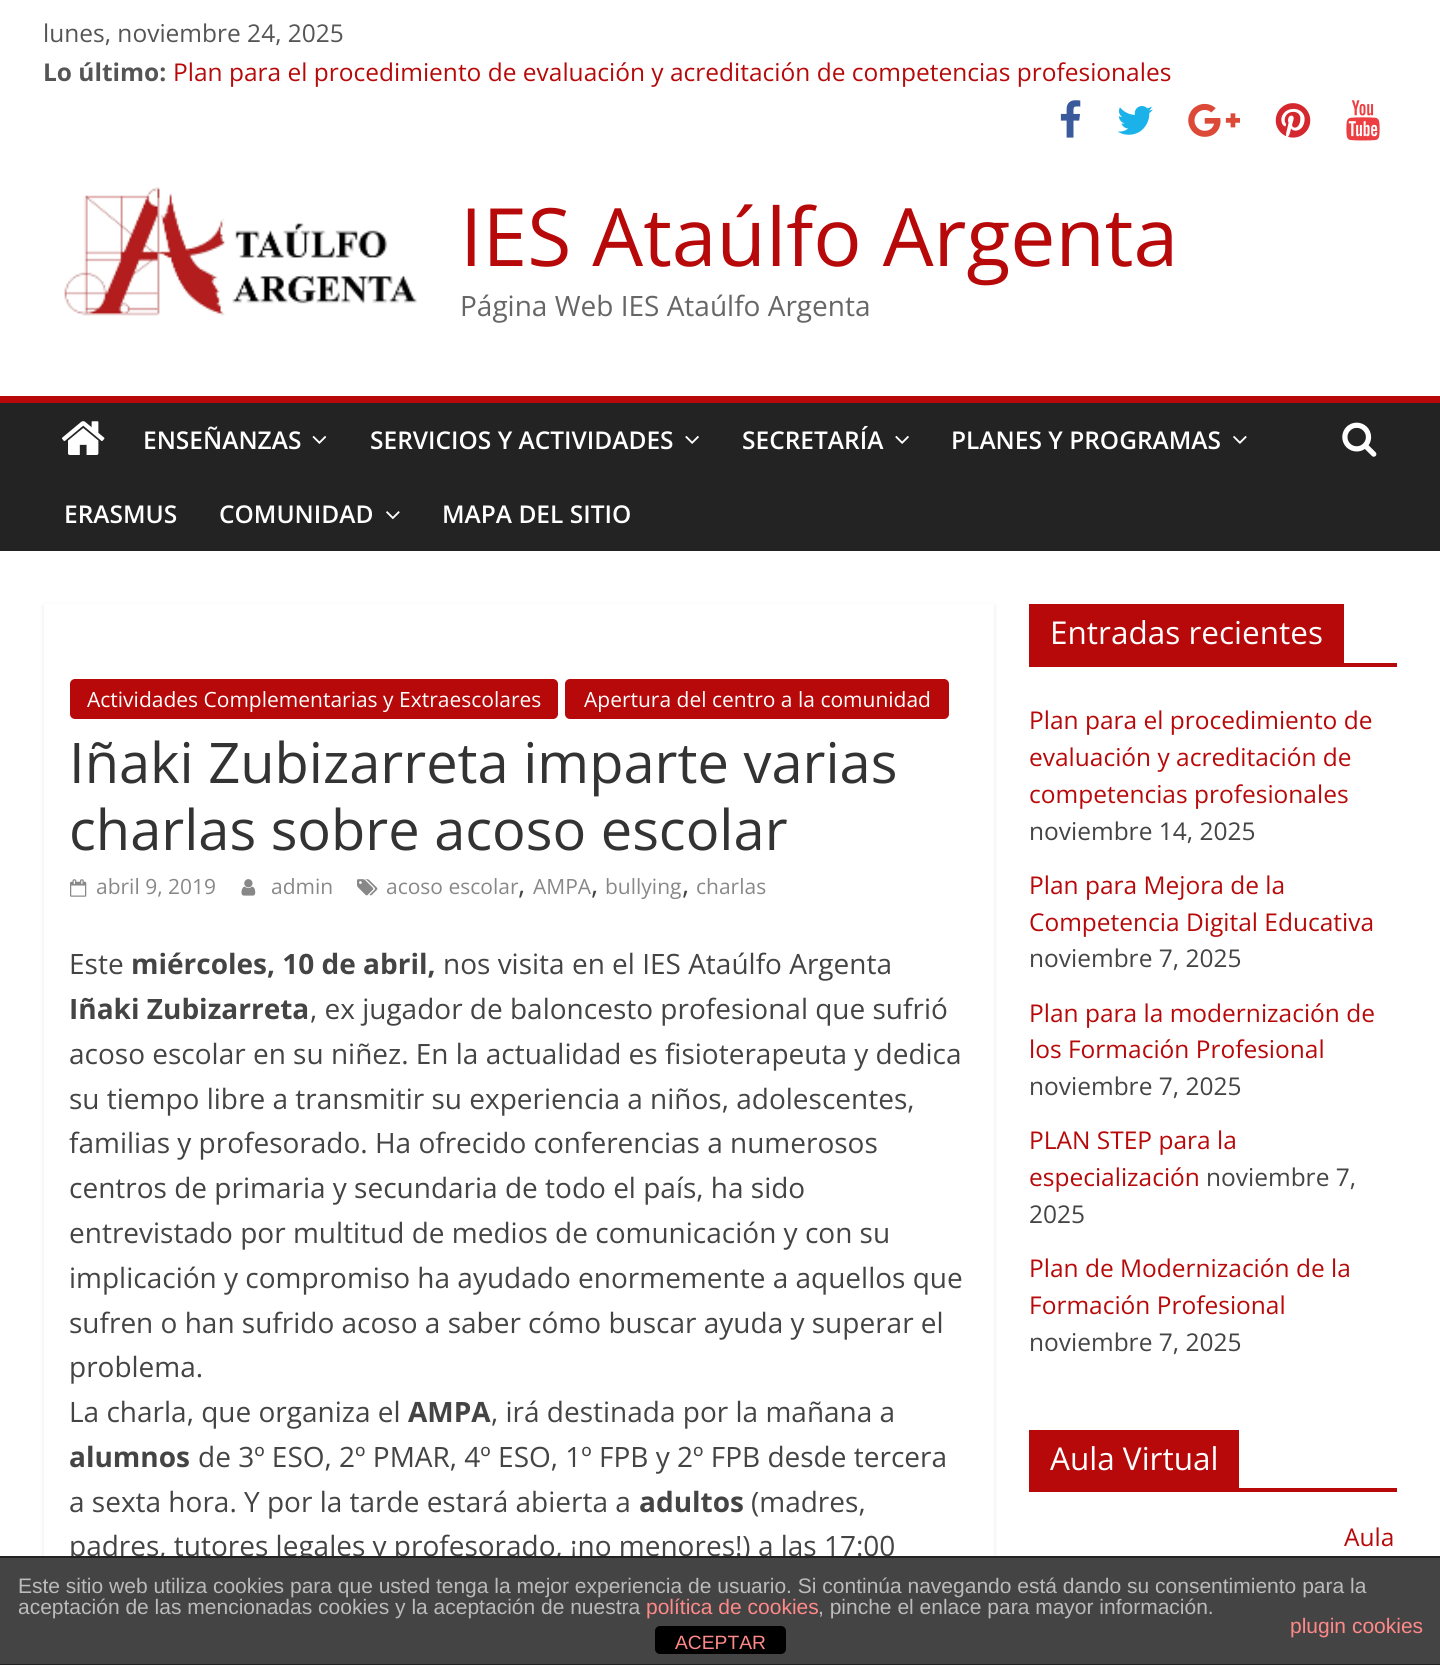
import math
import cairo

surface = cairo.ImageSurface(cairo.FORMAT_RGB24, 1440, 1665)
cr = cairo.Context(surface)
options = cairo.FontOptions()
options.set_hint_metrics(cairo.HINT_METRICS_OFF)
options.set_hint_style(cairo.HINT_STYLE_NONE)
cr.set_font_options(options)
cr.set_miter_limit(4)


def rgb(code):
    cr.set_source_rgb(*(v / 255 for v in bytes.fromhex(code[-6:])))


def rrect(x, y, w, h, r):
    cr.new_sub_path()
    for i, (u, v) in enumerate([(x + w - r, y + h - r), (x + r, y + h - r), (x + r, y + r), (x + w - r, y + r)]):
        cr.arc(u, v, r, i * math.pi / 2, (i + 1) * math.pi / 2)
    cr.close_path()


def soft_shadow(x, y, w, h, r, blur, alpha):
    cr.push_group_with_content(cairo.CONTENT_ALPHA)
    cr.set_operator(cairo.OPERATOR_SOURCE)
    for i in range(15, -16, -2):
        e = blur * i / 6
        if min(w, h) + 2 * e > 0:
            cr.set_source_rgba(0, 0, 0, alpha * math.erfc((i - 1) / 8.5) / 2)
            rrect(x - e, y - e, w + 2 * e, h + 2 * e, max(0, min(r + e + blur * .6, min(w, h) / 2 + e)))
            cr.fill()
    cr.mask(cr.pop_group())


def image(path, x, y, w, h):
    cr.save()
    cr.set_source_surface(cairo.ImageSurface.create_from_png(path), x, y)
    cr.rectangle(x, y, w, h)
    cr.fill()
    cr.restore()


rgb("#ffffff")
cr.paint()
image("img/1.png", 1060, 100, 21, 38)
image("img/2.png", 1117, 106, 36, 29)
image("img/3.png", 1188, 103, 52, 34)
image("img/4.png", 1275, 103, 36, 35)
image("img/5.png", 1346, 100, 34, 41)
image("img/6.png", 64, 187, 353, 129)
rgb("#232323")
cr.rectangle(0, 403, 1440, 148)
cr.fill()
rgb("#b70909")
cr.rectangle(0, 396, 1440, 7)
cr.fill()
image("img/7.png", 62, 421, 43, 34)
image("img/8.png", 1342, 422, 35, 35)
image("img/9.png", 312, 436, 15, 8)
image("img/10.png", 685, 436, 14, 8)
image("img/10.png", 895, 436, 14, 8)
image("img/11.png", 1233, 436, 14, 8)
image("img/12.png", 386, 511, 14, 9)
cr.save()
cr.set_fill_rule(cairo.FILL_RULE_EVEN_ODD)
cr.new_path()
cr.move_to(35, 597)
cr.line_to(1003, 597)
cr.line_to(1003, 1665)
cr.line_to(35, 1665)
cr.close_path()
cr.move_to(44, 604)
cr.line_to(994, 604)
cr.line_to(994, 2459)
cr.line_to(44, 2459)
cr.close_path()
cr.clip()
rgb("#000000")
soft_shadow(44, 606, 950, 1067, 0, 2.5, 0.1)
cr.restore()
rrect(70, 679, 488, 40, 5)
cr.fill()
rrect(565, 679, 384, 40, 5)
cr.fill()
image("img/13.png", 70, 879, 17, 18)
image("img/14.png", 241, 879, 15, 17)
image("img/15.png", 357, 879, 21, 17)
for x, y, w, h, color in [
    (1029, 663, 368, 4, "#b70909"),
    (1029, 604, 315, 59, "#b70909"),
    (1029, 1488, 368, 4, "#b70909"),
    (1029, 1430, 210, 58, "#b70909"),
    (0, 1558, 1440, 106, "#444444"),
    (0, 1664, 1440, 1, "#222222"),
]:
    rgb(color)
    cr.rectangle(x, y, w, h)
    cr.fill()
rgb("#000000")
rrect(655, 1626, 131, 28, 5)
cr.fill()
cr.select_font_face("Open Sans")
cr.set_font_size(24.5)
rgb("#555555")
cr.move_to(43, 42)
cr.show_text("lunes, noviembre 24, 2025")
cr.select_font_face("Open Sans", cairo.FONT_SLANT_NORMAL, cairo.FONT_WEIGHT_BOLD)
cr.move_to(43, 81)
cr.show_text("Lo último:")
cr.select_font_face("Open Sans")
rgb("#b70909")
cr.move_to(173, 81)
cr.show_text("Plan para el procedimiento de evaluación y acreditación de competencias profesionales")
cr.set_font_size(80.5)
cr.move_to(460, 266)
cr.show_text("IES Ataúlfo Argenta")
cr.set_font_size(28)
rgb("#666666")
cr.move_to(460, 316)
cr.show_text("Página Web IES Ataúlfo Argenta")
cr.select_font_face("Open Sans SemiBold")
cr.set_font_size(24.5)
rgb("#ffffff")
for x, y, s in [
    (143, 449, "ENSEÑANZAS"),
    (370, 449, "SERVICIOS Y ACTIVIDADES"),
    (742, 449, "SECRETARÍA"),
    (951, 449, "PLANES Y PROGRAMAS"),
    (64, 523, "ERASMUS"),
    (219, 523, "COMUNIDAD"),
    (442, 523, "MAPA DEL SITIO"),
]:
    cr.move_to(x, y)
    cr.show_text(s)
cr.select_font_face("Open Sans")
cr.set_font_size(21)
cr.move_to(87, 707)
cr.show_text("Actividades Complementarias y Extraescolares")
cr.move_to(584, 707)
cr.show_text("Apertura del centro a la comunidad")
cr.set_font_size(56)
rgb("#333333")
cr.move_to(69, 783)
cr.show_text("Iñaki Zubizarreta imparte varias")
cr.move_to(69, 850)
cr.show_text("charlas sobre acoso escolar")
cr.set_font_size(21)
rgb("#888888")
for x, y, s in [
    (96, 894, "abril 9, 2019"),
    (271, 894, "admin"),
    (386, 894, "acoso escolar"),
]:
    cr.move_to(x, y)
    cr.show_text(s)
cr.set_font_size(28)
rgb("#444444")
cr.move_to(518, 894)
cr.show_text(",")
cr.set_font_size(21)
rgb("#888888")
cr.move_to(533, 894)
cr.show_text("AMPA")
cr.set_font_size(28)
rgb("#444444")
cr.move_to(591, 894)
cr.show_text(",")
cr.set_font_size(21)
rgb("#888888")
cr.move_to(605, 894)
cr.show_text("bullying")
cr.set_font_size(28)
rgb("#444444")
cr.move_to(682, 894)
cr.show_text(",")
cr.set_font_size(21)
rgb("#888888")
cr.move_to(696, 894)
cr.show_text("charlas")
cr.set_font_size(28)
rgb("#444444")
cr.move_to(69, 974)
cr.show_text("Este")
cr.select_font_face("Open Sans", cairo.FONT_SLANT_NORMAL, cairo.FONT_WEIGHT_BOLD)
cr.move_to(131, 974)
cr.show_text("miércoles, 10 de abril,")
cr.select_font_face("Open Sans")
cr.move_to(443, 974)
cr.show_text("nos visita en el IES Ataúlfo Argenta")
cr.select_font_face("Open Sans", cairo.FONT_SLANT_NORMAL, cairo.FONT_WEIGHT_BOLD)
cr.move_to(69, 1019)
cr.show_text("Iñaki Zubizarreta")
cr.select_font_face("Open Sans")
for x, y, s in [
    (310, 1019, ", ex jugador de baloncesto profesional que sufrió"),
    (69, 1064, "acoso escolar en su niñez. En la actualidad es fisioterapeuta y dedica"),
    (69, 1109, "su tiempo libre a transmitir su experiencia a niños, adolescentes,"),
    (69, 1153, "familias y profesorado. Ha ofrecido conferencias a numerosos"),
    (69, 1198, "centros de primaria y secundaria de todo el país, ha sido"),
    (69, 1243, "entrevistado por multitud de medios de comunicación y con su"),
    (69, 1288, "implicación y compromiso ha ayudado enormemente a aquellos que"),
    (69, 1333, "sufren o han sufrido acoso a saber cómo buscar ayuda y superar el"),
    (69, 1377, "problema."),
    (69, 1422, "La charla, que organiza el"),
]:
    cr.move_to(x, y)
    cr.show_text(s)
cr.select_font_face("Open Sans", cairo.FONT_SLANT_NORMAL, cairo.FONT_WEIGHT_BOLD)
cr.move_to(408, 1422)
cr.show_text("AMPA")
cr.select_font_face("Open Sans")
cr.move_to(491, 1422)
cr.show_text(", irá destinada por la mañana a")
cr.select_font_face("Open Sans", cairo.FONT_SLANT_NORMAL, cairo.FONT_WEIGHT_BOLD)
cr.move_to(69, 1467)
cr.show_text("alumnos")
cr.select_font_face("Open Sans")
cr.move_to(198, 1467)
cr.show_text("de 3º ESO, 2º PMAR, 4º ESO, 1º FPB y 2º FPB desde tercera")
cr.move_to(69, 1512)
cr.show_text("a sexta hora. Y por la tarde estará abierta a")
cr.select_font_face("Open Sans", cairo.FONT_SLANT_NORMAL, cairo.FONT_WEIGHT_BOLD)
cr.move_to(639, 1512)
cr.show_text("adultos")
cr.select_font_face("Open Sans")
cr.move_to(751, 1512)
cr.show_text("(madres,")
cr.move_to(69, 1556)
cr.show_text("padres, tutores legales y profesorado, ¡no menores!) a las 17:00")
cr.set_font_size(31.5)
rgb("#ffffff")
cr.move_to(1050, 644)
cr.show_text("Entradas recientes")
cr.set_font_size(24.5)
rgb("#b70909")
for x, y, s in [
    (1029, 729, "Plan para el procedimiento de"),
    (1029, 766, "evaluación y acreditación de"),
    (1029, 803, "competencias profesionales"),
]:
    cr.move_to(x, y)
    cr.show_text(s)
rgb("#444444")
cr.move_to(1029, 840)
cr.show_text("noviembre 14, 2025")
rgb("#b70909")
cr.move_to(1029, 894)
cr.show_text("Plan para Mejora de la")
cr.move_to(1029, 931)
cr.show_text("Competencia Digital Educativa")
rgb("#444444")
cr.move_to(1029, 967)
cr.show_text("noviembre 7, 2025")
rgb("#b70909")
cr.move_to(1029, 1022)
cr.show_text("Plan para la modernización de")
cr.move_to(1029, 1058)
cr.show_text("los Formación Profesional")
rgb("#444444")
cr.move_to(1029, 1095)
cr.show_text("noviembre 7, 2025")
rgb("#b70909")
cr.move_to(1029, 1149)
cr.show_text("PLAN STEP para la")
cr.move_to(1029, 1186)
cr.show_text("especialización")
rgb("#444444")
cr.move_to(1206, 1186)
cr.show_text("noviembre 7,")
cr.move_to(1029, 1223)
cr.show_text("2025")
rgb("#b70909")
cr.move_to(1029, 1277)
cr.show_text("Plan de Modernización de la")
cr.move_to(1029, 1314)
cr.show_text("Formación Profesional")
rgb("#444444")
cr.move_to(1029, 1351)
cr.show_text("noviembre 7, 2025")
cr.set_font_size(31.5)
rgb("#ffffff")
cr.move_to(1050, 1470)
cr.show_text("Aula Virtual")
cr.set_font_size(24.5)
rgb("#b70909")
cr.move_to(1344, 1546)
cr.show_text("Aula")
rgb("#222222")
cr.rectangle(0, 1556, 1440, 2)
cr.fill()
cr.select_font_face("Liberation Sans")
cr.set_font_size(21)
rgb("#bbbbbb")
cr.move_to(18, 1593)
cr.show_text("Este sitio web utiliza cookies para que usted tenga la mejor experiencia de usuario. Si continúa navegando está dando su consentimiento para la")
cr.move_to(18, 1614)
cr.show_text("aceptación de las mencionadas cookies y la aceptación de nuestra")
rgb("#ff8888")
cr.move_to(646, 1614)
cr.show_text("política de cookies")
rgb("#bbbbbb")
cr.move_to(818, 1614)
cr.show_text(", pinche el enlace para mayor información.")
rgb("#ff8888")
cr.move_to(1290, 1633)
cr.show_text("plugin cookies")
cr.set_font_size(19.25)
cr.move_to(675, 1649)
cr.show_text("ACEPTAR")
surface.write_to_png("page.png")
